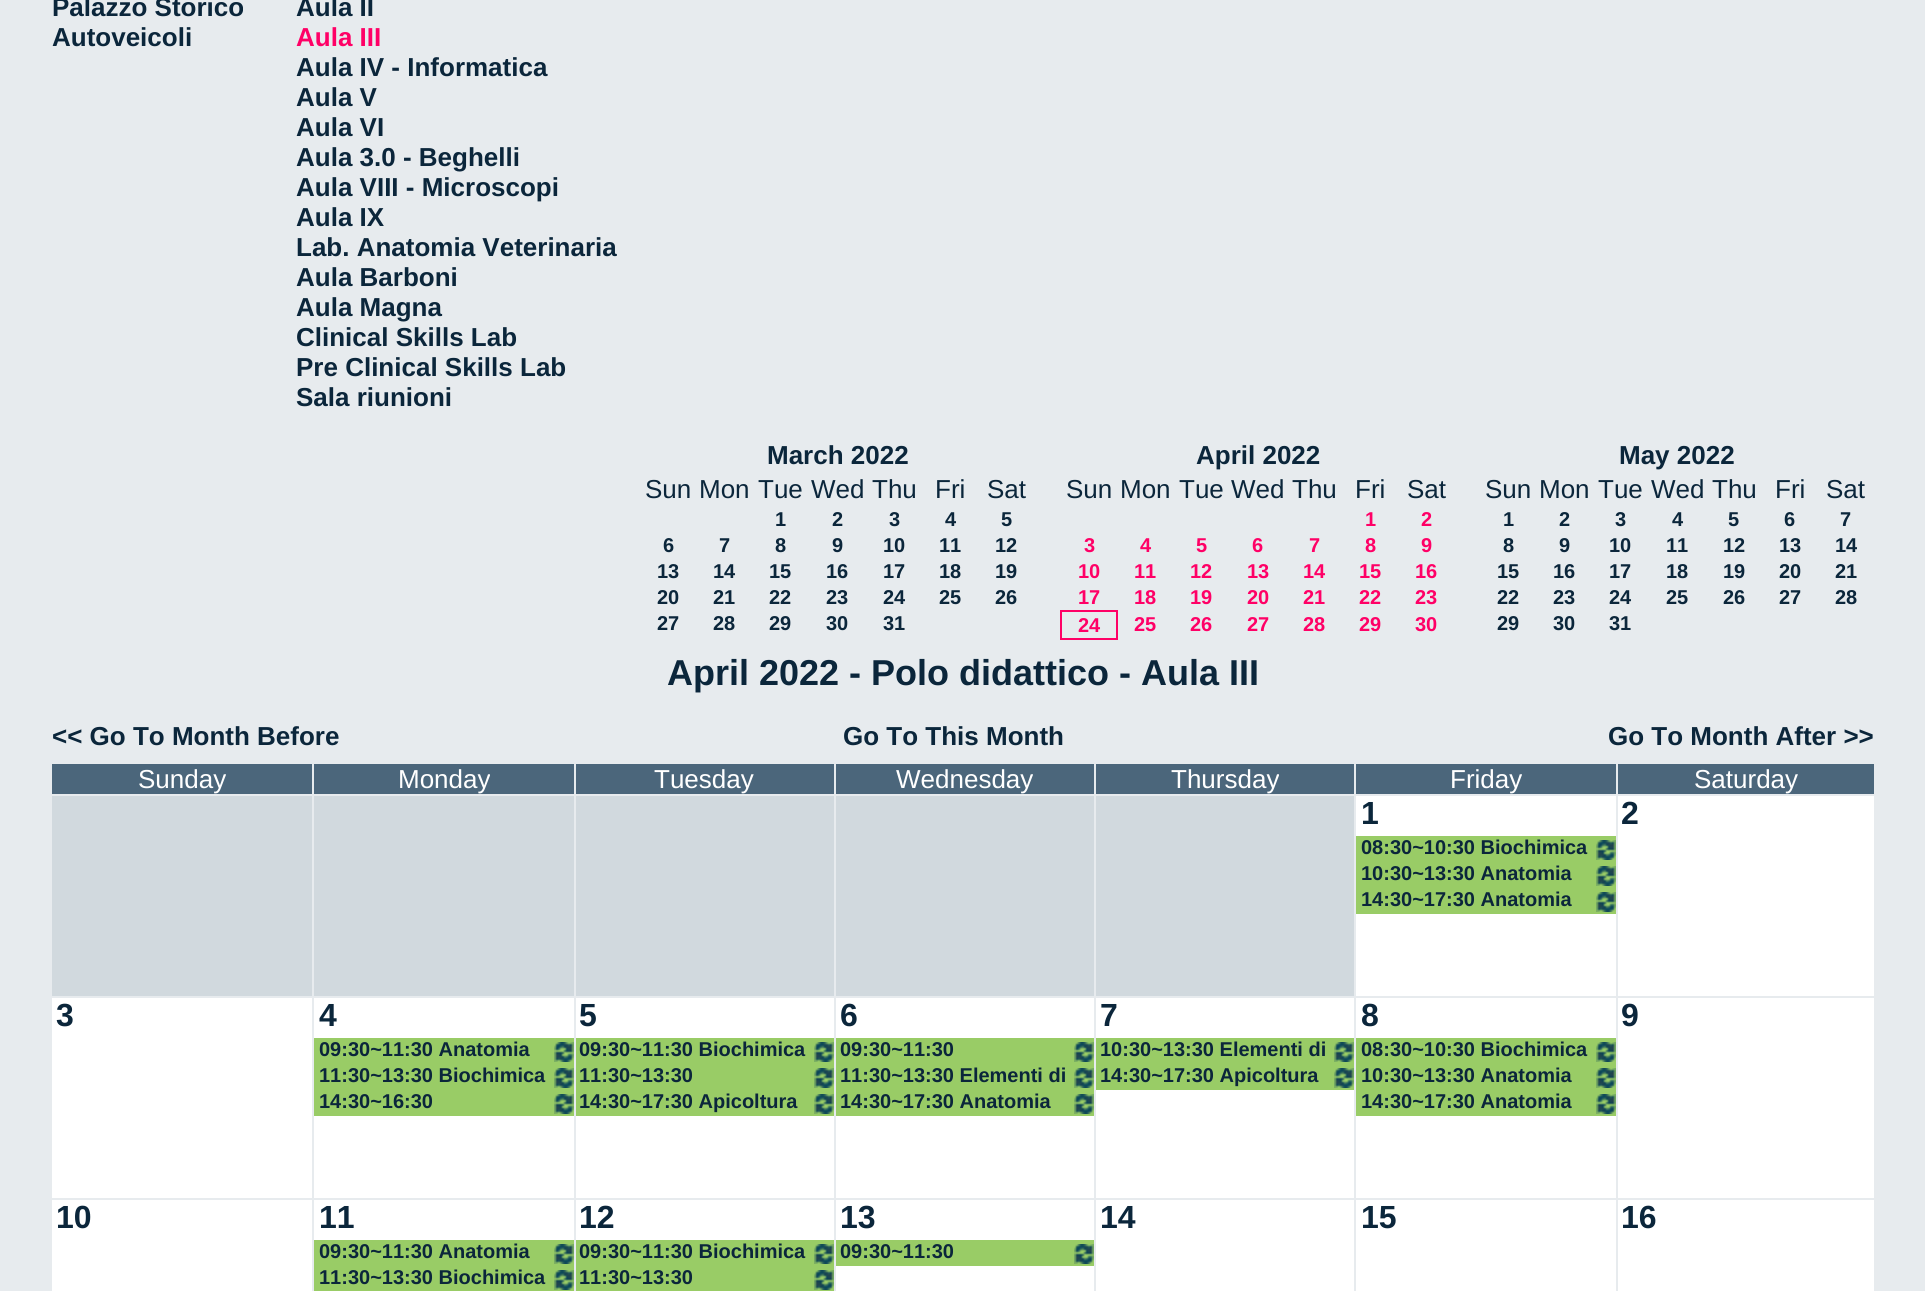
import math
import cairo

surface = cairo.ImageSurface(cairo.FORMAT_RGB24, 1925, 1291)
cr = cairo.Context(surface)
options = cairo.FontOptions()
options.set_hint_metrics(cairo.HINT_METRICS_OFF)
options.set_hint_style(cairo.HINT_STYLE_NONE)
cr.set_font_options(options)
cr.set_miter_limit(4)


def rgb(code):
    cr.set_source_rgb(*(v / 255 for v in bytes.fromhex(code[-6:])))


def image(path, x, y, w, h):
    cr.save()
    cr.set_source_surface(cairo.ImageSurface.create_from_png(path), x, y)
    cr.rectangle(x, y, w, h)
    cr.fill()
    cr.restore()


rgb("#e7ebee")
cr.paint()
for x, y, w, h, color in [
    (1060, 610, 58, 2, "#ff0066"),
    (1116, 610, 2, 30, "#ff0066"),
    (1060, 638, 58, 2, "#ff0066"),
    (1060, 610, 2, 30, "#ff0066"),
    (52, 764, 260, 30, "#4b667b"),
    (314, 764, 260, 30, "#4b667b"),
    (576, 764, 258, 30, "#4b667b"),
    (836, 764, 258, 30, "#4b667b"),
    (1096, 764, 258, 30, "#4b667b"),
    (1356, 764, 260, 30, "#4b667b"),
    (1618, 764, 256, 30, "#4b667b"),
    (52, 796, 260, 200, "#d1d9de"),
    (314, 796, 260, 200, "#d1d9de"),
    (576, 796, 258, 200, "#d1d9de"),
    (836, 796, 258, 200, "#d1d9de"),
    (1096, 796, 258, 200, "#d1d9de"),
    (1356, 796, 260, 200, "#ffffff"),
    (1356, 836, 260, 78, "#99cc66"),
]:
    rgb(color)
    cr.rectangle(x, y, w, h)
    cr.fill()
image("img/1.png", 1596, 840, 20, 20)
image("img/1.png", 1596, 866, 20, 20)
image("img/1.png", 1596, 892, 20, 20)
for x, y, w, h, color in [
    (1618, 796, 256, 200, "#ffffff"),
    (52, 998, 260, 200, "#ffffff"),
    (314, 998, 260, 200, "#ffffff"),
    (314, 1038, 260, 78, "#99cc66"),
]:
    rgb(color)
    cr.rectangle(x, y, w, h)
    cr.fill()
image("img/1.png", 554, 1042, 20, 20)
image("img/1.png", 554, 1068, 20, 20)
image("img/1.png", 554, 1094, 20, 20)
rgb("#ffffff")
cr.rectangle(576, 998, 258, 200)
cr.fill()
rgb("#99cc66")
cr.rectangle(576, 1038, 258, 78)
cr.fill()
image("img/1.png", 814, 1042, 20, 20)
image("img/1.png", 814, 1068, 20, 20)
image("img/1.png", 814, 1094, 20, 20)
rgb("#ffffff")
cr.rectangle(836, 998, 258, 200)
cr.fill()
rgb("#99cc66")
cr.rectangle(836, 1038, 258, 78)
cr.fill()
image("img/1.png", 1074, 1042, 20, 20)
image("img/1.png", 1074, 1068, 20, 20)
image("img/1.png", 1074, 1094, 20, 20)
rgb("#ffffff")
cr.rectangle(1096, 998, 258, 200)
cr.fill()
rgb("#99cc66")
cr.rectangle(1096, 1038, 258, 52)
cr.fill()
image("img/1.png", 1334, 1042, 20, 20)
image("img/1.png", 1334, 1068, 20, 20)
rgb("#ffffff")
cr.rectangle(1356, 998, 260, 200)
cr.fill()
rgb("#99cc66")
cr.rectangle(1356, 1038, 260, 78)
cr.fill()
image("img/1.png", 1596, 1042, 20, 20)
image("img/1.png", 1596, 1068, 20, 20)
image("img/1.png", 1596, 1094, 20, 20)
for x, y, w, h, color in [
    (1618, 998, 256, 200, "#ffffff"),
    (52, 1200, 260, 91, "#ffffff"),
    (314, 1200, 260, 40, "#ffffff"),
    (314, 1240, 260, 51, "#99cc66"),
]:
    rgb(color)
    cr.rectangle(x, y, w, h)
    cr.fill()
image("img/1.png", 554, 1244, 20, 20)
image("img/1.png", 554, 1270, 20, 20)
rgb("#ffffff")
cr.rectangle(576, 1200, 258, 40)
cr.fill()
rgb("#99cc66")
cr.rectangle(576, 1240, 258, 51)
cr.fill()
image("img/1.png", 814, 1244, 20, 20)
image("img/1.png", 814, 1270, 20, 20)
rgb("#ffffff")
cr.rectangle(836, 1200, 258, 91)
cr.fill()
rgb("#99cc66")
cr.rectangle(836, 1240, 258, 26)
cr.fill()
image("img/1.png", 1074, 1244, 20, 20)
for x, y, w, h, color in [
    (1096, 1200, 258, 91, "#ffffff"),
    (1356, 1200, 260, 91, "#ffffff"),
    (1618, 1200, 256, 91, "#ffffff"),
]:
    rgb(color)
    cr.rectangle(x, y, w, h)
    cr.fill()
cr.select_font_face("Liberation Sans", cairo.FONT_SLANT_NORMAL, cairo.FONT_WEIGHT_BOLD)
cr.set_font_size(26)
rgb("#0b263b")
for x, y, s in [
    (52, 16, "Palazzo Storico"),
    (52, 46, "Autoveicoli"),
    (296, 16, "Aula II"),
]:
    cr.move_to(x, y)
    cr.show_text(s)
rgb("#ff0066")
cr.move_to(296, 46)
cr.show_text("Aula III")
rgb("#0b263b")
for x, y, s in [
    (296, 76, "Aula IV - Informatica"),
    (296, 106, "Aula V"),
    (296, 136, "Aula VI"),
    (296, 166, "Aula 3.0 - Beghelli"),
    (296, 196, "Aula VIII - Microscopi"),
    (296, 226, "Aula IX"),
    (296, 256, "Lab. Anatomia Veterinaria"),
    (296, 286, "Aula Barboni"),
    (296, 316, "Aula Magna"),
    (296, 346, "Clinical Skills Lab"),
    (296, 376, "Pre Clinical Skills Lab"),
    (296, 406, "Sala riunioni"),
    (767, 464, "March 2022"),
]:
    cr.move_to(x, y)
    cr.show_text(s)
cr.select_font_face("Liberation Sans")
for x, y, s in [
    (645, 498, "Sun"),
    (699, 498, "Mon"),
    (758, 498, "Tue"),
    (811, 498, "Wed"),
    (872, 498, "Thu"),
    (935, 498, "Fri"),
    (987, 498, "Sat"),
]:
    cr.move_to(x, y)
    cr.show_text(s)
cr.select_font_face("Liberation Sans", cairo.FONT_SLANT_NORMAL, cairo.FONT_WEIGHT_BOLD)
cr.set_font_size(20)
for x, y, s in [
    (775, 526, "1"),
    (832, 526, "2"),
    (889, 526, "3"),
    (945, 526, "4"),
    (1001, 526, "5"),
    (663, 552, "6"),
    (719, 552, "7"),
    (775, 552, "8"),
    (832, 552, "9"),
    (883, 552, "10"),
    (939, 552, "11"),
    (995, 552, "12"),
    (657, 578, "13"),
    (713, 578, "14"),
    (769, 578, "15"),
    (826, 578, "16"),
    (883, 578, "17"),
    (939, 578, "18"),
    (995, 578, "19"),
    (657, 604, "20"),
    (713, 604, "21"),
    (769, 604, "22"),
    (826, 604, "23"),
    (883, 604, "24"),
    (939, 604, "25"),
    (995, 604, "26"),
    (657, 630, "27"),
    (713, 630, "28"),
    (769, 630, "29"),
    (826, 630, "30"),
    (883, 630, "31"),
]:
    cr.move_to(x, y)
    cr.show_text(s)
cr.set_font_size(26)
cr.move_to(1196, 464)
cr.show_text("April 2022")
cr.select_font_face("Liberation Sans")
for x, y, s in [
    (1066, 498, "Sun"),
    (1120, 498, "Mon"),
    (1179, 498, "Tue"),
    (1231, 498, "Wed"),
    (1292, 498, "Thu"),
    (1355, 498, "Fri"),
    (1407, 498, "Sat"),
]:
    cr.move_to(x, y)
    cr.show_text(s)
cr.select_font_face("Liberation Sans", cairo.FONT_SLANT_NORMAL, cairo.FONT_WEIGHT_BOLD)
cr.set_font_size(20)
rgb("#ff0066")
for x, y, s in [
    (1365, 526, "1"),
    (1421, 526, "2"),
    (1084, 552, "3"),
    (1140, 552, "4"),
    (1196, 552, "5"),
    (1252, 552, "6"),
    (1309, 552, "7"),
    (1365, 552, "8"),
    (1421, 552, "9"),
    (1078, 578, "10"),
    (1134, 578, "11"),
    (1190, 578, "12"),
    (1247, 578, "13"),
    (1303, 578, "14"),
    (1359, 578, "15"),
    (1415, 578, "16"),
    (1078, 604, "17"),
    (1134, 604, "18"),
    (1190, 604, "19"),
    (1247, 604, "20"),
    (1303, 604, "21"),
    (1359, 604, "22"),
    (1415, 604, "23"),
    (1078, 632, "24"),
    (1134, 631, "25"),
    (1190, 631, "26"),
    (1247, 631, "27"),
    (1303, 631, "28"),
    (1359, 631, "29"),
    (1415, 631, "30"),
]:
    cr.move_to(x, y)
    cr.show_text(s)
cr.set_font_size(26)
rgb("#0b263b")
cr.move_to(1619, 464)
cr.show_text("May 2022")
cr.select_font_face("Liberation Sans")
for x, y, s in [
    (1485, 498, "Sun"),
    (1539, 498, "Mon"),
    (1598, 498, "Tue"),
    (1651, 498, "Wed"),
    (1712, 498, "Thu"),
    (1775, 498, "Fri"),
    (1826, 498, "Sat"),
]:
    cr.move_to(x, y)
    cr.show_text(s)
cr.select_font_face("Liberation Sans", cairo.FONT_SLANT_NORMAL, cairo.FONT_WEIGHT_BOLD)
cr.set_font_size(20)
for x, y, s in [
    (1503, 526, "1"),
    (1559, 526, "2"),
    (1615, 526, "3"),
    (1672, 526, "4"),
    (1728, 526, "5"),
    (1784, 526, "6"),
    (1840, 526, "7"),
    (1503, 552, "8"),
    (1559, 552, "9"),
    (1609, 552, "10"),
    (1666, 552, "11"),
    (1723, 552, "12"),
    (1779, 552, "13"),
    (1835, 552, "14"),
    (1497, 578, "15"),
    (1553, 578, "16"),
    (1609, 578, "17"),
    (1666, 578, "18"),
    (1723, 578, "19"),
    (1779, 578, "20"),
    (1835, 578, "21"),
    (1497, 604, "22"),
    (1553, 604, "23"),
    (1609, 604, "24"),
    (1666, 604, "25"),
    (1723, 604, "26"),
    (1779, 604, "27"),
    (1835, 604, "28"),
    (1497, 630, "29"),
    (1553, 630, "30"),
    (1609, 630, "31"),
]:
    cr.move_to(x, y)
    cr.show_text(s)
cr.set_font_size(36)
cr.move_to(667, 685)
cr.show_text("April 2022 - Polo didattico - Aula III")
cr.set_font_size(26)
for x, y, s in [
    (52, 745, "<< Go To Month Before"),
    (843, 745, "Go To This Month"),
    (1608, 745, "Go To Month After >>"),
]:
    cr.move_to(x, y)
    cr.show_text(s)
cr.select_font_face("Liberation Sans")
rgb("#ffffff")
for x, y, s in [
    (138, 788, "Sunday"),
    (398, 788, "Monday"),
    (654, 788, "Tuesday"),
    (896, 788, "Wednesday"),
    (1171, 788, "Thursday"),
    (1450, 788, "Friday"),
    (1694, 788, "Saturday"),
]:
    cr.move_to(x, y)
    cr.show_text(s)
cr.select_font_face("Liberation Sans", cairo.FONT_SLANT_NORMAL, cairo.FONT_WEIGHT_BOLD)
cr.set_font_size(32)
rgb("#0b263b")
cr.move_to(1361, 824)
cr.show_text("1")
cr.set_font_size(20)
for x, y, s in [
    (1361, 854, "08:30~10:30 Biochimica"),
    (1361, 880, "10:30~13:30 Anatomia"),
    (1361, 906, "14:30~17:30 Anatomia"),
]:
    cr.move_to(x, y)
    cr.show_text(s)
cr.set_font_size(32)
for x, y, s in [
    (1621, 824, "2"),
    (56, 1026, "3"),
    (319, 1026, "4"),
]:
    cr.move_to(x, y)
    cr.show_text(s)
cr.set_font_size(20)
for x, y, s in [
    (319, 1056, "09:30~11:30 Anatomia"),
    (319, 1082, "11:30~13:30 Biochimica"),
    (319, 1108, "14:30~16:30"),
]:
    cr.move_to(x, y)
    cr.show_text(s)
cr.set_font_size(32)
cr.move_to(579, 1026)
cr.show_text("5")
cr.set_font_size(20)
for x, y, s in [
    (579, 1056, "09:30~11:30 Biochimica"),
    (579, 1082, "11:30~13:30"),
    (579, 1108, "14:30~17:30 Apicoltura"),
]:
    cr.move_to(x, y)
    cr.show_text(s)
cr.set_font_size(32)
cr.move_to(840, 1026)
cr.show_text("6")
cr.set_font_size(20)
for x, y, s in [
    (840, 1056, "09:30~11:30"),
    (840, 1082, "11:30~13:30 Elementi di"),
    (840, 1108, "14:30~17:30 Anatomia"),
]:
    cr.move_to(x, y)
    cr.show_text(s)
cr.set_font_size(32)
cr.move_to(1100, 1026)
cr.show_text("7")
cr.set_font_size(20)
cr.move_to(1100, 1056)
cr.show_text("10:30~13:30 Elementi di")
cr.move_to(1100, 1082)
cr.show_text("14:30~17:30 Apicoltura")
cr.set_font_size(32)
cr.move_to(1361, 1026)
cr.show_text("8")
cr.set_font_size(20)
for x, y, s in [
    (1361, 1056, "08:30~10:30 Biochimica"),
    (1361, 1082, "10:30~13:30 Anatomia"),
    (1361, 1108, "14:30~17:30 Anatomia"),
]:
    cr.move_to(x, y)
    cr.show_text(s)
cr.set_font_size(32)
for x, y, s in [
    (1621, 1026, "9"),
    (56, 1228, "10"),
    (319, 1228, "11"),
]:
    cr.move_to(x, y)
    cr.show_text(s)
cr.set_font_size(20)
cr.move_to(319, 1258)
cr.show_text("09:30~11:30 Anatomia")
cr.move_to(319, 1284)
cr.show_text("11:30~13:30 Biochimica")
cr.set_font_size(32)
cr.move_to(579, 1228)
cr.show_text("12")
cr.set_font_size(20)
cr.move_to(579, 1258)
cr.show_text("09:30~11:30 Biochimica")
cr.move_to(579, 1284)
cr.show_text("11:30~13:30")
cr.set_font_size(32)
cr.move_to(840, 1228)
cr.show_text("13")
cr.set_font_size(20)
cr.move_to(840, 1258)
cr.show_text("09:30~11:30")
cr.set_font_size(32)
for x, y, s in [
    (1100, 1228, "14"),
    (1361, 1228, "15"),
    (1621, 1228, "16"),
]:
    cr.move_to(x, y)
    cr.show_text(s)
surface.write_to_png("page.png")
